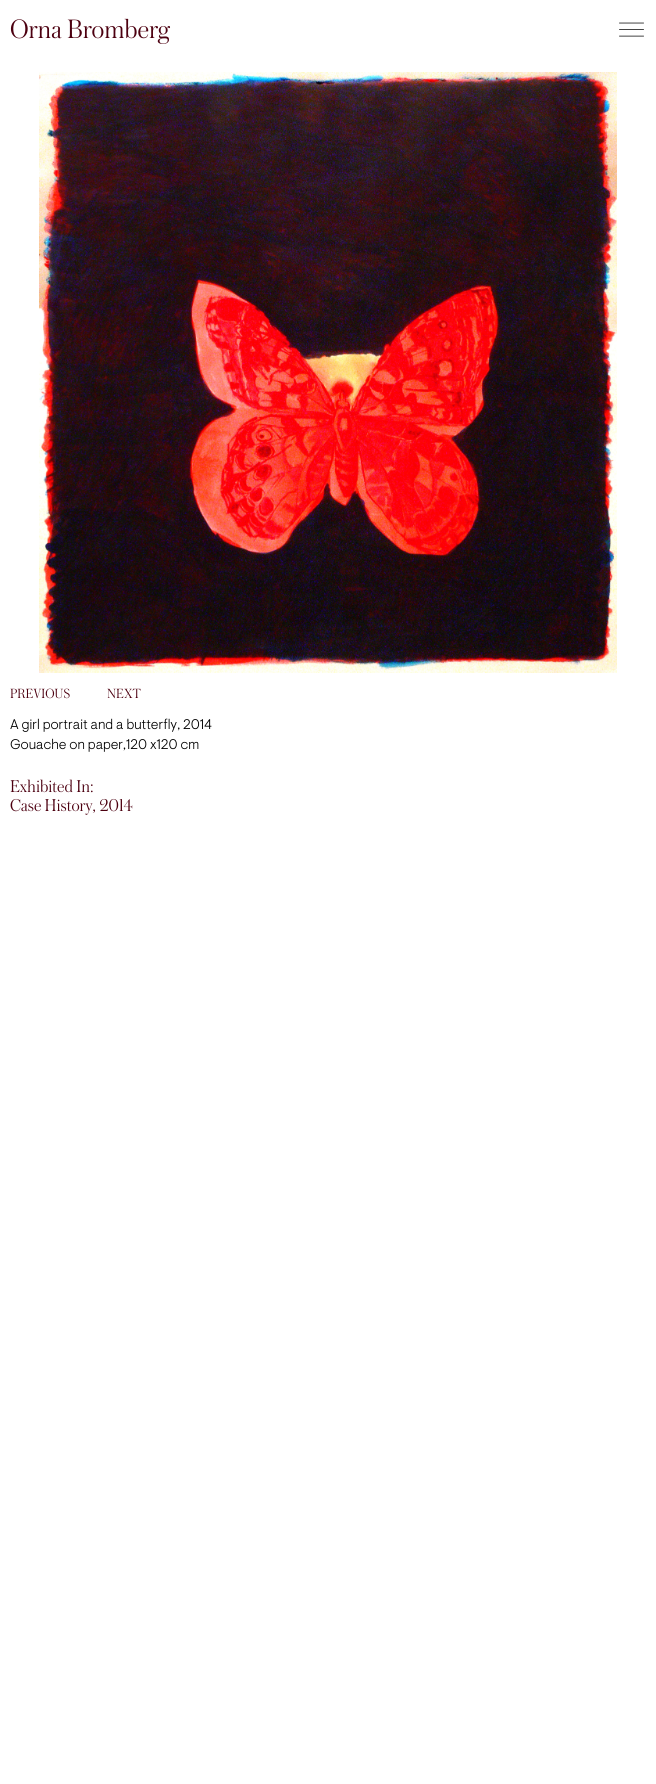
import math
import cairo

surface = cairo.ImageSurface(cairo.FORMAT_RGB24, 656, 1784)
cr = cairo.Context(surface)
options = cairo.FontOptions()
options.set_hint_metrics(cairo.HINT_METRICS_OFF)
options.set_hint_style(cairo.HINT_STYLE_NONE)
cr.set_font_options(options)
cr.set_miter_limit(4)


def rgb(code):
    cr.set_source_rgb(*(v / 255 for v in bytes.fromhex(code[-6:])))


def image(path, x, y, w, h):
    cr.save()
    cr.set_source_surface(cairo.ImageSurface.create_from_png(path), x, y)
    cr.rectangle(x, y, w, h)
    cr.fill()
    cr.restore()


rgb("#ffffff")
cr.paint()
image("img/1.png", 619, 22, 25, 15)
image("img/2.png", 39, 72, 578, 601)
cr.select_font_face("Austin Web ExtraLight")
cr.set_font_size(28)
rgb("#4c0010")
cr.move_to(10, 38)
cr.show_text("Orna Bromberg")
cr.set_font_size(14)
cr.move_to(10, 698)
cr.show_text("PREVIOUS")
cr.move_to(107, 698)
cr.show_text("NEXT")
cr.select_font_face("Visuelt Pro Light")
rgb("#000000")
cr.move_to(10, 729)
cr.show_text("A girl portrait and a butterfly, 2014")
cr.move_to(10, 749)
cr.show_text("Gouache on paper,120 x120 cm")
cr.select_font_face("Austin Web ExtraLight")
cr.set_font_size(18)
rgb("#4c0010")
cr.move_to(10, 792)
cr.show_text("Exhibited In:")
cr.move_to(10, 811)
cr.show_text("Case History, 2014")
surface.write_to_png("page.png")
